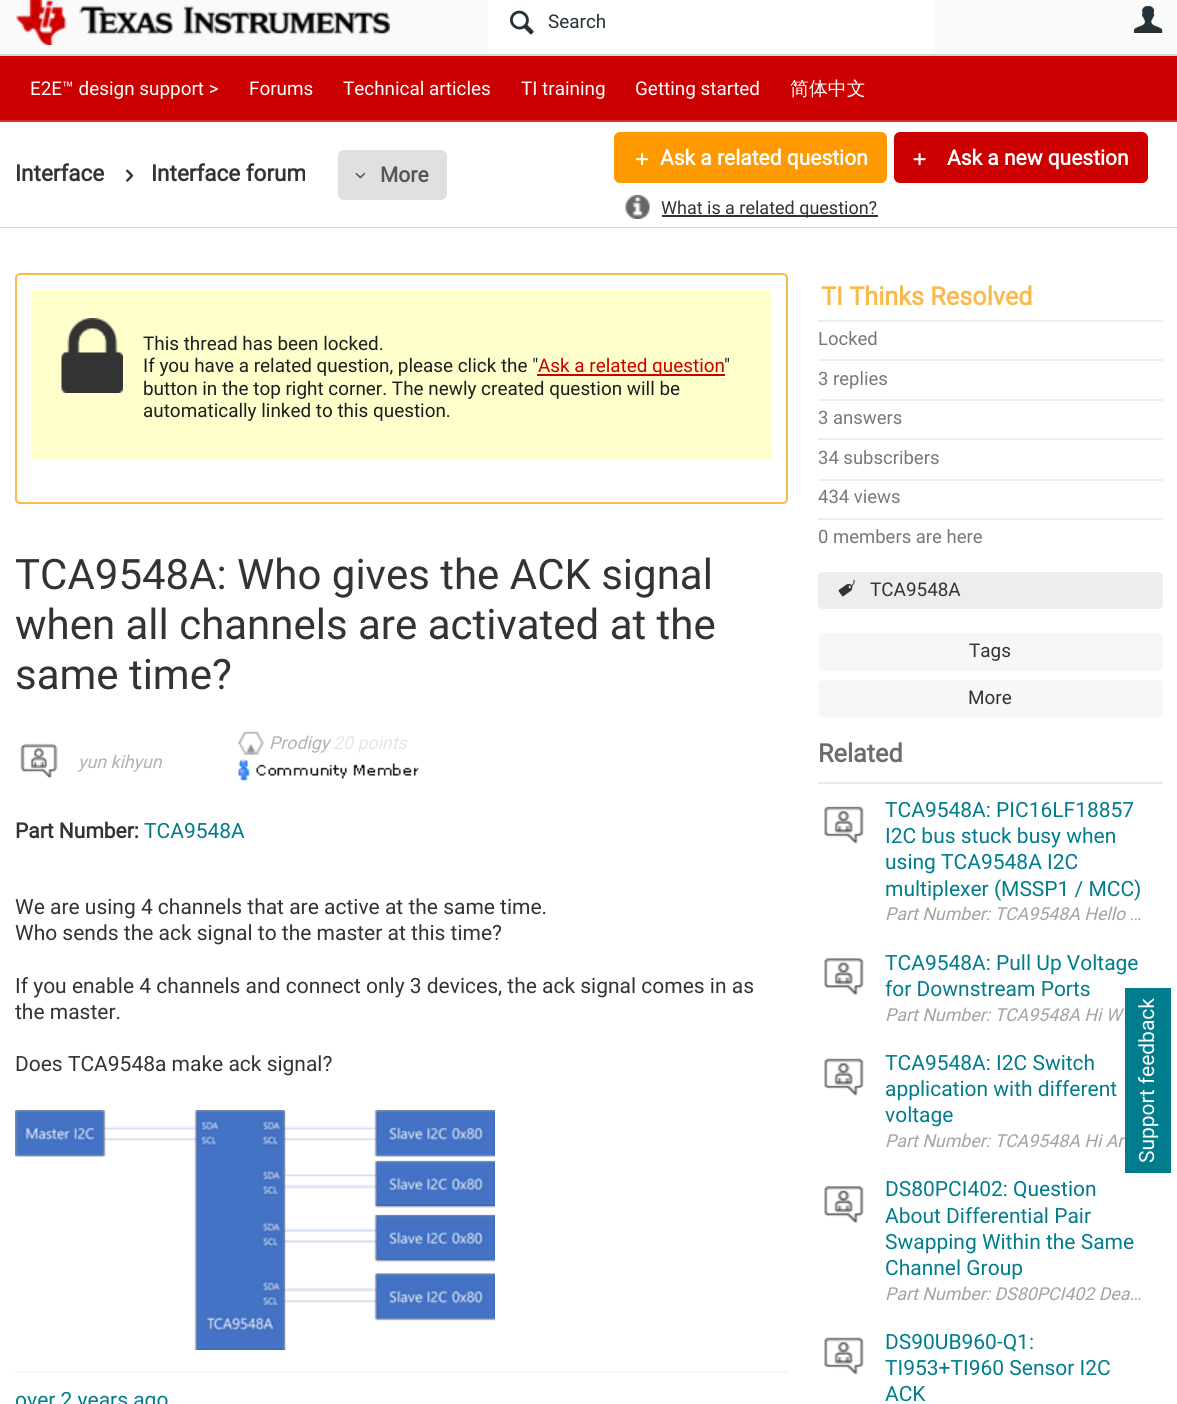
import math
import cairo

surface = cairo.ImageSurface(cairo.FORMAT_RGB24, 1177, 1404)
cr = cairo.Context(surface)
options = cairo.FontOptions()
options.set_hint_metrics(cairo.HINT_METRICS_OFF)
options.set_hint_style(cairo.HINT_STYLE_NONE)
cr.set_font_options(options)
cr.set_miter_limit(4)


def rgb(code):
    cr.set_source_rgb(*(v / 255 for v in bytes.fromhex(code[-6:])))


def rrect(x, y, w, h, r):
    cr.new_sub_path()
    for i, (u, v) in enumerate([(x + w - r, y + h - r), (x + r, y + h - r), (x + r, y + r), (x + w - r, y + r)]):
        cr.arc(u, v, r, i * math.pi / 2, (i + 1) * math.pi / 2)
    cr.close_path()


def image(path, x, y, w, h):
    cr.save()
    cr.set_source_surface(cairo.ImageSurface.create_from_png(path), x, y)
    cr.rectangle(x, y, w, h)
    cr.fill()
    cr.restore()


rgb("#ffffff")
cr.paint()
rgb("#fafafa")
cr.rectangle(0, 0, 1177, 54)
cr.fill()
rgb("#cfd8dc")
cr.rectangle(0, 54, 1177, 2)
cr.fill()
image("img/1.png", 16, 0, 374, 45)
rgb("#ffffff")
cr.rectangle(488, 0, 445, 54)
cr.fill()
image("img/2.png", 510, 10, 24, 25)
image("img/3.png", 1134, 6, 29, 27)
for x, y, w, h, color in [
    (0, 227, 1177, 1, "#cfd8dc"),
    (0, 56, 1177, 64, "#cc0000"),
    (0, 120, 1177, 2, "#d63333"),
]:
    rgb(color)
    cr.rectangle(x, y, w, h)
    cr.fill()
image("img/4.png", 126, 169, 8, 13)
rgb("#e0e0e0")
rrect(338, 150, 109, 50, 6)
cr.fill()
image("img/5.png", 355, 172, 11, 7)
rgb("#ff9900")
rrect(614, 132, 273, 51, 6)
cr.fill()
image("img/6.png", 636, 153, 13, 13)
image("img/7.png", 625, 195, 25, 24)
rgb("#333333")
cr.rectangle(662, 215, 216, 2)
cr.fill()
rgb("#cc0000")
rrect(894, 132, 254, 51, 6)
cr.fill()
image("img/8.png", 913, 153, 13, 13)
rrect(16, 274, 771, 229, 4)
rgb("#fab94d")
cr.stroke()
rgb("#ffffcc")
cr.rectangle(32, 290, 739, 169)
cr.fill()
image("img/9.png", 61, 318, 62, 75)
rgb("#cc0000")
cr.rectangle(537, 374, 188, 2)
cr.fill()
image("img/10.png", 20, 743, 38, 35)
image("img/11.png", 20, 744, 38, 34)
image("img/12.png", 238, 731, 26, 24)
image("img/13.png", 238, 758, 181, 23)
rgb("#f7f7f7")
cr.rectangle(15, 1371, 773, 2)
cr.fill()
image("img/14.png", 15, 1110, 480, 240)
for x, y, w, h, color in [
    (818, 320, 345, 2, "#ededed"),
    (818, 359, 345, 2, "#ededed"),
    (818, 399, 345, 2, "#ededed"),
    (818, 438, 345, 2, "#ededed"),
    (818, 479, 345, 2, "#ededed"),
    (818, 518, 345, 2, "#ededed"),
]:
    rgb(color)
    cr.rectangle(x, y, w, h)
    cr.fill()
rrect(818, 572, 345, 37, 5)
cr.fill()
image("img/15.png", 838, 579, 17, 18)
rgb("#f7f7f7")
rrect(818, 633, 345, 38, 5)
cr.fill()
rrect(818, 680, 345, 37, 5)
cr.fill()
rgb("#e9e9e9")
cr.rectangle(818, 782, 345, 2)
cr.fill()
image("img/16.png", 824, 806, 40, 38)
image("img/17.png", 824, 806, 40, 38)
image("img/18.png", 824, 958, 40, 37)
image("img/19.png", 824, 958, 40, 37)
image("img/16.png", 824, 1058, 40, 38)
image("img/17.png", 824, 1058, 40, 38)
image("img/18.png", 824, 1186, 40, 37)
image("img/19.png", 824, 1186, 40, 37)
image("img/16.png", 824, 1337, 40, 38)
image("img/17.png", 824, 1337, 40, 38)
cr.select_font_face("Roboto")
cr.set_font_size(18.9)
rgb("#263238")
cr.move_to(548, 28)
cr.show_text("Search")
rgb("#ffffff")
for x, y, s in [
    (30, 95, "E2E™ design support >"),
    (249, 95, "Forums"),
    (343, 95, "Technical articles"),
    (521, 95, "TI training"),
    (635, 95, "Getting started"),
]:
    cr.move_to(x, y)
    cr.show_text(s)
cr.select_font_face("WenQuanYi Zen Hei Medium")
cr.move_to(790, 95)
cr.show_text("简体中文")
cr.select_font_face("Roboto", cairo.FONT_SLANT_NORMAL, cairo.FONT_WEIGHT_BOLD)
cr.set_font_size(22.5)
rgb("#333333")
cr.move_to(15, 181)
cr.show_text("Interface")
cr.move_to(151, 181)
cr.show_text("Interface forum")
cr.set_font_size(21)
rgb("#555555")
cr.move_to(380, 182)
cr.show_text("More")
rgb("#ffffff")
cr.move_to(660, 165)
cr.show_text("Ask a related question")
cr.select_font_face("Roboto")
cr.set_font_size(18)
rgb("#333333")
cr.move_to(661, 214)
cr.show_text("What is a related question?")
cr.select_font_face("Roboto", cairo.FONT_SLANT_NORMAL, cairo.FONT_WEIGHT_BOLD)
cr.set_font_size(21)
rgb("#ffffff")
cr.move_to(947, 165)
cr.show_text("Ask a new question")
cr.select_font_face("Roboto")
cr.set_font_size(18.9)
rgb("#1e1e1e")
cr.move_to(143, 350)
cr.show_text("This thread has been locked.")
cr.move_to(143, 372)
cr.show_text("If you have a related question, please click the \"")
rgb("#cc0000")
cr.move_to(538, 372)
cr.show_text("Ask a related question")
rgb("#1e1e1e")
for x, y, s in [
    (724, 372, "\""),
    (143, 395, "button in the top right corner. The newly created question will be"),
    (143, 417, "automatically linked to this question."),
]:
    cr.move_to(x, y)
    cr.show_text(s)
cr.set_font_size(42)
rgb("#333333")
for x, y, s in [
    (15, 589, "TCA9548A: Who gives the ACK signal"),
    (15, 639, "when all channels are activated at the"),
    (15, 689, "same time?"),
]:
    cr.move_to(x, y)
    cr.show_text(s)
cr.select_font_face("Roboto", cairo.FONT_SLANT_ITALIC)
cr.set_font_size(17.8)
rgb("#b2b2b2")
cr.move_to(78, 768)
cr.show_text("yun kihyun")
cr.move_to(269, 749)
cr.show_text("Prodigy")
rgb("#e5e5e5")
cr.move_to(333, 749)
cr.show_text("20 points")
cr.select_font_face("Roboto", cairo.FONT_SLANT_NORMAL, cairo.FONT_WEIGHT_BOLD)
cr.set_font_size(21)
rgb("#333333")
cr.move_to(15, 838)
cr.show_text("Part Number:")
cr.select_font_face("Roboto")
rgb("#007c8c")
cr.move_to(144, 838)
cr.show_text("TCA9548A")
rgb("#333333")
for x, y, s in [
    (15, 914, "We are using 4 channels that are active at the same time."),
    (15, 940, "Who sends the ack signal to the master at this time?"),
    (15, 993, "If you enable 4 channels and connect only 3 devices, the ack signal comes in as"),
    (15, 1019, "the master."),
    (15, 1071, "Does TCA9548a make ack signal?"),
]:
    cr.move_to(x, y)
    cr.show_text(s)
rgb("#007c8c")
cr.move_to(15, 1407)
cr.show_text("over 2 years ago")
cr.select_font_face("Roboto", cairo.FONT_SLANT_NORMAL, cairo.FONT_WEIGHT_BOLD)
cr.set_font_size(25.25)
rgb("#fab94d")
cr.move_to(821, 305)
cr.show_text("TI Thinks Resolved")
cr.select_font_face("Roboto")
cr.set_font_size(18.5)
rgb("#787878")
for x, y, s in [
    (818, 345, "Locked"),
    (818, 385, "3 replies"),
    (818, 424, "3 answers"),
    (818, 464, "34 subscribers"),
    (818, 503, "434 views"),
    (818, 543, "0 members are here"),
]:
    cr.move_to(x, y)
    cr.show_text(s)
cr.set_font_size(18.9)
rgb("#333333")
for x, y, s in [
    (870, 596, "TCA9548A"),
    (969, 657, "Tags"),
    (968, 704, "More"),
]:
    cr.move_to(x, y)
    cr.show_text(s)
cr.select_font_face("Roboto", cairo.FONT_SLANT_NORMAL, cairo.FONT_WEIGHT_BOLD)
cr.set_font_size(25.25)
rgb("#6c6c6c")
cr.move_to(818, 762)
cr.show_text("Related")
cr.select_font_face("Roboto")
cr.set_font_size(21)
rgb("#007c8c")
for x, y, s in [
    (885, 817, "TCA9548A: PIC16LF18857"),
    (885, 843, "I2C bus stuck busy when"),
    (885, 869, "using TCA9548A I2C"),
    (885, 896, "multiplexer (MSSP1 / MCC)"),
]:
    cr.move_to(x, y)
    cr.show_text(s)
cr.select_font_face("Roboto", cairo.FONT_SLANT_ITALIC)
cr.set_font_size(17.8)
rgb("#a3a3a3")
cr.move_to(885, 920)
cr.show_text("Part Number: TCA9548A Hello …")
cr.select_font_face("Roboto")
cr.set_font_size(21)
rgb("#007c8c")
cr.move_to(885, 970)
cr.show_text("TCA9548A: Pull Up Voltage")
cr.move_to(885, 996)
cr.show_text("for Downstream Ports")
cr.select_font_face("Roboto", cairo.FONT_SLANT_ITALIC)
cr.set_font_size(17.8)
rgb("#a3a3a3")
cr.move_to(885, 1021)
cr.show_text("Part Number: TCA9548A Hi W")
cr.select_font_face("Roboto")
cr.set_font_size(21)
rgb("#007c8c")
for x, y, s in [
    (885, 1070, "TCA9548A: I2C Switch"),
    (885, 1096, "application with different"),
    (885, 1122, "voltage"),
]:
    cr.move_to(x, y)
    cr.show_text(s)
cr.select_font_face("Roboto", cairo.FONT_SLANT_ITALIC)
cr.set_font_size(17.8)
rgb("#a3a3a3")
cr.move_to(885, 1147)
cr.show_text("Part Number: TCA9548A Hi Ar")
cr.select_font_face("Roboto")
cr.set_font_size(21)
rgb("#007c8c")
for x, y, s in [
    (885, 1196, "DS80PCI402: Question"),
    (885, 1223, "About Differential Pair"),
    (885, 1249, "Swapping Within the Same"),
    (885, 1275, "Channel Group"),
]:
    cr.move_to(x, y)
    cr.show_text(s)
cr.select_font_face("Roboto", cairo.FONT_SLANT_ITALIC)
cr.set_font_size(17.8)
rgb("#a3a3a3")
cr.move_to(885, 1300)
cr.show_text("Part Number: DS80PCI402 Dea…")
cr.select_font_face("Roboto")
cr.set_font_size(21)
rgb("#007c8c")
for x, y, s in [
    (885, 1349, "DS90UB960-Q1:"),
    (885, 1375, "TI953+TI960 Sensor I2C"),
    (885, 1401, "ACK"),
]:
    cr.move_to(x, y)
    cr.show_text(s)
cr.rectangle(1125, 988, 46, 185)
cr.fill()
rgb("#ffffff")
cr.save()
cr.translate(1154, 1163)
cr.rotate(-90 * math.pi / 180)
cr.move_to(0, 0)
cr.show_text("Support feedback")
cr.restore()
surface.write_to_png("page.png")
